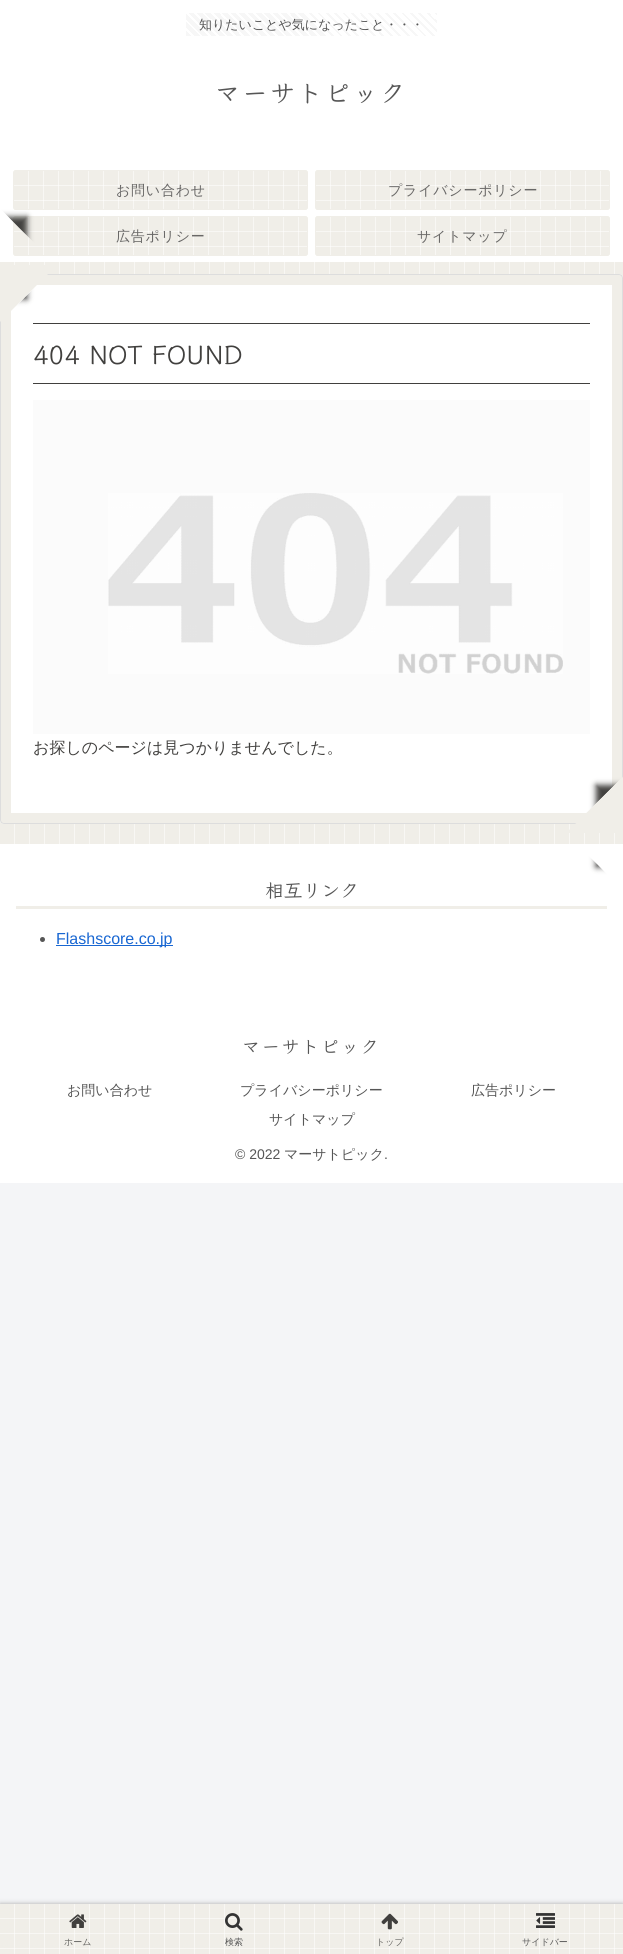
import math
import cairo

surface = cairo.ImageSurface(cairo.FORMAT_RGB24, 623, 1954)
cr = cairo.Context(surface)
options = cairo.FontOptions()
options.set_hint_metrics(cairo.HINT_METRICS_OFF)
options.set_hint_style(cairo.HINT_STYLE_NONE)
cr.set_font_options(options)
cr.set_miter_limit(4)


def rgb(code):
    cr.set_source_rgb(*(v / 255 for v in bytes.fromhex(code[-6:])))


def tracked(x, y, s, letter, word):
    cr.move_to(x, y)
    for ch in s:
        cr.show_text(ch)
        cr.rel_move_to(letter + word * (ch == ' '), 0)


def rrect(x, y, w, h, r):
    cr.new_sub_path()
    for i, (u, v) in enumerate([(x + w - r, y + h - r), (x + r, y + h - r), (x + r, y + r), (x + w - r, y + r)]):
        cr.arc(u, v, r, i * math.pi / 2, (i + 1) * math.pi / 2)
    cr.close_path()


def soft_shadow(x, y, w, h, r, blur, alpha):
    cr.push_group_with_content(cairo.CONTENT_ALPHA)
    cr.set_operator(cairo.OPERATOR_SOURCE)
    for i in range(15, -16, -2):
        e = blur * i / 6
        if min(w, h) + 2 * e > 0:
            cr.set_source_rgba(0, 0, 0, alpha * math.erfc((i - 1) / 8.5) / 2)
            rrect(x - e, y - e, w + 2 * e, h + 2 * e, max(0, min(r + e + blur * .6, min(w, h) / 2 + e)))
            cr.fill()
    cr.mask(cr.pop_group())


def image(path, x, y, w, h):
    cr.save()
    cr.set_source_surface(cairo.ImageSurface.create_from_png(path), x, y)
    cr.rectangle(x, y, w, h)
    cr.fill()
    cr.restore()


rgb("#f4f5f7")
cr.paint()
rgb("#f0eee8")
cr.rectangle(0, 262, 623, 582)
cr.fill()
image("img/1.png", 14, 262, 601, 582)
rgb("#ffffff")
cr.rectangle(0, 0, 623, 262)
cr.fill()
gradient = cairo.LinearGradient(243, 93, 383, -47)
gradient.add_color_stop_rgba(0, 0.969, 0.969, 0.969, 1)
gradient.add_color_stop_rgba(0.02, 0.969, 0.969, 0.969, 1)
gradient.add_color_stop_rgba(0.02, 1, 1, 1, 1)
gradient.add_color_stop_rgba(0.03, 1, 1, 1, 1)
gradient.add_color_stop_rgba(0.03, 0.969, 0.969, 0.969, 1)
gradient.add_color_stop_rgba(0.05, 0.969, 0.969, 0.969, 1)
gradient.add_color_stop_rgba(0.05, 1, 1, 1, 1)
gradient.add_color_stop_rgba(0.06, 1, 1, 1, 1)
gradient.add_color_stop_rgba(0.06, 0.969, 0.969, 0.969, 1)
gradient.add_color_stop_rgba(0.08, 0.969, 0.969, 0.969, 1)
gradient.add_color_stop_rgba(0.08, 1, 1, 1, 1)
gradient.add_color_stop_rgba(0.09, 1, 1, 1, 1)
gradient.add_color_stop_rgba(0.09, 0.969, 0.969, 0.969, 1)
gradient.add_color_stop_rgba(0.11, 0.969, 0.969, 0.969, 1)
gradient.add_color_stop_rgba(0.11, 1, 1, 1, 1)
gradient.add_color_stop_rgba(0.12, 1, 1, 1, 1)
gradient.add_color_stop_rgba(0.12, 0.969, 0.969, 0.969, 1)
gradient.add_color_stop_rgba(0.14, 0.969, 0.969, 0.969, 1)
gradient.add_color_stop_rgba(0.14, 1, 1, 1, 1)
gradient.add_color_stop_rgba(0.15, 1, 1, 1, 1)
gradient.add_color_stop_rgba(0.15, 0.969, 0.969, 0.969, 1)
gradient.add_color_stop_rgba(0.17, 0.969, 0.969, 0.969, 1)
gradient.add_color_stop_rgba(0.17, 1, 1, 1, 1)
gradient.add_color_stop_rgba(0.18, 1, 1, 1, 1)
gradient.add_color_stop_rgba(0.18, 0.969, 0.969, 0.969, 1)
gradient.add_color_stop_rgba(0.2, 0.969, 0.969, 0.969, 1)
gradient.add_color_stop_rgba(0.2, 1, 1, 1, 1)
gradient.add_color_stop_rgba(0.21, 1, 1, 1, 1)
gradient.add_color_stop_rgba(0.21, 0.969, 0.969, 0.969, 1)
gradient.add_color_stop_rgba(0.23, 0.969, 0.969, 0.969, 1)
gradient.add_color_stop_rgba(0.23, 1, 1, 1, 1)
gradient.add_color_stop_rgba(0.24, 1, 1, 1, 1)
gradient.add_color_stop_rgba(0.24, 0.969, 0.969, 0.969, 1)
gradient.add_color_stop_rgba(0.26, 0.969, 0.969, 0.969, 1)
gradient.add_color_stop_rgba(0.26, 1, 1, 1, 1)
gradient.add_color_stop_rgba(0.27, 1, 1, 1, 1)
gradient.add_color_stop_rgba(0.27, 0.969, 0.969, 0.969, 1)
gradient.add_color_stop_rgba(0.29, 0.969, 0.969, 0.969, 1)
gradient.add_color_stop_rgba(0.29, 1, 1, 1, 1)
gradient.add_color_stop_rgba(0.3, 1, 1, 1, 1)
gradient.add_color_stop_rgba(0.3, 0.969, 0.969, 0.969, 1)
gradient.add_color_stop_rgba(0.32, 0.969, 0.969, 0.969, 1)
gradient.add_color_stop_rgba(0.32, 1, 1, 1, 1)
gradient.add_color_stop_rgba(0.33, 1, 1, 1, 1)
gradient.add_color_stop_rgba(0.33, 0.969, 0.969, 0.969, 1)
gradient.add_color_stop_rgba(0.35, 0.969, 0.969, 0.969, 1)
gradient.add_color_stop_rgba(0.35, 1, 1, 1, 1)
gradient.add_color_stop_rgba(0.36, 1, 1, 1, 1)
gradient.add_color_stop_rgba(0.36, 0.969, 0.969, 0.969, 1)
gradient.add_color_stop_rgba(0.38, 0.969, 0.969, 0.969, 1)
gradient.add_color_stop_rgba(0.38, 1, 1, 1, 1)
gradient.add_color_stop_rgba(0.39, 1, 1, 1, 1)
gradient.add_color_stop_rgba(0.39, 0.969, 0.969, 0.969, 1)
gradient.add_color_stop_rgba(0.41, 0.969, 0.969, 0.969, 1)
gradient.add_color_stop_rgba(0.41, 1, 1, 1, 1)
gradient.add_color_stop_rgba(0.42, 1, 1, 1, 1)
gradient.add_color_stop_rgba(0.42, 0.969, 0.969, 0.969, 1)
gradient.add_color_stop_rgba(0.44, 0.969, 0.969, 0.969, 1)
gradient.add_color_stop_rgba(0.44, 1, 1, 1, 1)
gradient.add_color_stop_rgba(0.45, 1, 1, 1, 1)
gradient.add_color_stop_rgba(0.45, 0.969, 0.969, 0.969, 1)
gradient.add_color_stop_rgba(0.47, 0.969, 0.969, 0.969, 1)
gradient.add_color_stop_rgba(0.47, 1, 1, 1, 1)
gradient.add_color_stop_rgba(0.48, 1, 1, 1, 1)
gradient.add_color_stop_rgba(0.48, 0.969, 0.969, 0.969, 1)
gradient.add_color_stop_rgba(0.5, 0.969, 0.969, 0.969, 1)
gradient.add_color_stop_rgba(0.5, 1, 1, 1, 1)
gradient.add_color_stop_rgba(0.52, 1, 1, 1, 1)
gradient.add_color_stop_rgba(0.52, 0.969, 0.969, 0.969, 1)
gradient.add_color_stop_rgba(0.53, 0.969, 0.969, 0.969, 1)
gradient.add_color_stop_rgba(0.53, 1, 1, 1, 1)
gradient.add_color_stop_rgba(0.55, 1, 1, 1, 1)
gradient.add_color_stop_rgba(0.55, 0.969, 0.969, 0.969, 1)
gradient.add_color_stop_rgba(0.56, 0.969, 0.969, 0.969, 1)
gradient.add_color_stop_rgba(0.56, 1, 1, 1, 1)
gradient.add_color_stop_rgba(0.58, 1, 1, 1, 1)
gradient.add_color_stop_rgba(0.58, 0.969, 0.969, 0.969, 1)
gradient.add_color_stop_rgba(0.59, 0.969, 0.969, 0.969, 1)
gradient.add_color_stop_rgba(0.59, 1, 1, 1, 1)
gradient.add_color_stop_rgba(0.61, 1, 1, 1, 1)
gradient.add_color_stop_rgba(0.61, 0.969, 0.969, 0.969, 1)
gradient.add_color_stop_rgba(0.62, 0.969, 0.969, 0.969, 1)
gradient.add_color_stop_rgba(0.62, 1, 1, 1, 1)
gradient.add_color_stop_rgba(0.64, 1, 1, 1, 1)
gradient.add_color_stop_rgba(0.64, 0.969, 0.969, 0.969, 1)
gradient.add_color_stop_rgba(0.65, 0.969, 0.969, 0.969, 1)
gradient.add_color_stop_rgba(0.65, 1, 1, 1, 1)
gradient.add_color_stop_rgba(0.67, 1, 1, 1, 1)
gradient.add_color_stop_rgba(0.67, 0.969, 0.969, 0.969, 1)
gradient.add_color_stop_rgba(0.68, 0.969, 0.969, 0.969, 1)
gradient.add_color_stop_rgba(0.68, 1, 1, 1, 1)
gradient.add_color_stop_rgba(0.7, 1, 1, 1, 1)
gradient.add_color_stop_rgba(0.7, 0.969, 0.969, 0.969, 1)
gradient.add_color_stop_rgba(0.71, 0.969, 0.969, 0.969, 1)
gradient.add_color_stop_rgba(0.71, 1, 1, 1, 1)
gradient.add_color_stop_rgba(0.73, 1, 1, 1, 1)
gradient.add_color_stop_rgba(0.73, 0.969, 0.969, 0.969, 1)
gradient.add_color_stop_rgba(0.74, 0.969, 0.969, 0.969, 1)
gradient.add_color_stop_rgba(0.74, 1, 1, 1, 1)
gradient.add_color_stop_rgba(0.76, 1, 1, 1, 1)
gradient.add_color_stop_rgba(0.76, 0.969, 0.969, 0.969, 1)
gradient.add_color_stop_rgba(0.77, 0.969, 0.969, 0.969, 1)
gradient.add_color_stop_rgba(0.77, 1, 1, 1, 1)
gradient.add_color_stop_rgba(0.79, 1, 1, 1, 1)
gradient.add_color_stop_rgba(0.79, 0.969, 0.969, 0.969, 1)
gradient.add_color_stop_rgba(0.8, 0.969, 0.969, 0.969, 1)
gradient.add_color_stop_rgba(0.8, 1, 1, 1, 1)
gradient.add_color_stop_rgba(0.82, 1, 1, 1, 1)
gradient.add_color_stop_rgba(0.82, 0.969, 0.969, 0.969, 1)
gradient.add_color_stop_rgba(0.83, 0.969, 0.969, 0.969, 1)
gradient.add_color_stop_rgba(0.83, 1, 1, 1, 1)
gradient.add_color_stop_rgba(0.85, 1, 1, 1, 1)
gradient.add_color_stop_rgba(0.85, 0.969, 0.969, 0.969, 1)
gradient.add_color_stop_rgba(0.86, 0.969, 0.969, 0.969, 1)
gradient.add_color_stop_rgba(0.86, 1, 1, 1, 1)
gradient.add_color_stop_rgba(0.88, 1, 1, 1, 1)
gradient.add_color_stop_rgba(0.88, 0.969, 0.969, 0.969, 1)
gradient.add_color_stop_rgba(0.89, 0.969, 0.969, 0.969, 1)
gradient.add_color_stop_rgba(0.89, 1, 1, 1, 1)
gradient.add_color_stop_rgba(0.91, 1, 1, 1, 1)
gradient.add_color_stop_rgba(0.91, 0.969, 0.969, 0.969, 1)
gradient.add_color_stop_rgba(0.92, 0.969, 0.969, 0.969, 1)
gradient.add_color_stop_rgba(0.92, 1, 1, 1, 1)
gradient.add_color_stop_rgba(0.94, 1, 1, 1, 1)
gradient.add_color_stop_rgba(0.94, 0.969, 0.969, 0.969, 1)
gradient.add_color_stop_rgba(0.95, 0.969, 0.969, 0.969, 1)
gradient.add_color_stop_rgba(0.95, 1, 1, 1, 1)
gradient.add_color_stop_rgba(0.97, 1, 1, 1, 1)
gradient.add_color_stop_rgba(0.97, 0.969, 0.969, 0.969, 1)
gradient.add_color_stop_rgba(0.98, 0.969, 0.969, 0.969, 1)
gradient.add_color_stop_rgba(0.98, 1, 1, 1, 1)
gradient.add_color_stop_rgba(1, 1, 1, 1, 1)
cr.set_source(gradient)
cr.rectangle(186, 13, 251, 23)
cr.fill()
rgb("#f0eee8")
rrect(13, 170, 295, 40, 3)
cr.fill()
image("img/2.png", 13, 171, 286, 38)
gradient = cairo.LinearGradient(22, 171, 22, 186)
gradient.add_color_stop_rgba(0.93, 1, 1, 1, 0)
gradient.add_color_stop_rgba(1, 1, 1, 1, 1)
cr.set_source(gradient)
cr.rectangle(14, 185, 293, 1)
cr.fill()
gradient = cairo.LinearGradient(22, 186, 22, 201)
gradient.add_color_stop_rgba(0.93, 1, 1, 1, 0)
gradient.add_color_stop_rgba(1, 1, 1, 1, 1)
cr.set_source(gradient)
cr.rectangle(14, 200, 293, 1)
cr.fill()
rrect(13.5, 170.5, 294, 39, 2.5)
rgb("#f0eee8")
cr.set_line_width(1)
cr.stroke()
rrect(315, 170, 295, 40, 3)
cr.fill()
image("img/2.png", 315, 171, 286, 38)
gradient = cairo.LinearGradient(324, 171, 324, 186)
gradient.add_color_stop_rgba(0.93, 1, 1, 1, 0)
gradient.add_color_stop_rgba(1, 1, 1, 1, 1)
cr.set_source(gradient)
cr.rectangle(316, 185, 293, 1)
cr.fill()
gradient = cairo.LinearGradient(324, 186, 324, 201)
gradient.add_color_stop_rgba(0.93, 1, 1, 1, 0)
gradient.add_color_stop_rgba(1, 1, 1, 1, 1)
cr.set_source(gradient)
cr.rectangle(316, 200, 293, 1)
cr.fill()
rrect(315.5, 170.5, 294, 39, 2.5)
rgb("#f0eee8")
cr.stroke()
rrect(13, 216, 295, 40, 3)
cr.fill()
image("img/2.png", 13, 217, 286, 38)
gradient = cairo.LinearGradient(22, 217, 22, 232)
gradient.add_color_stop_rgba(0.93, 1, 1, 1, 0)
gradient.add_color_stop_rgba(1, 1, 1, 1, 1)
cr.set_source(gradient)
cr.rectangle(14, 231, 293, 1)
cr.fill()
gradient = cairo.LinearGradient(22, 232, 22, 247)
gradient.add_color_stop_rgba(0.93, 1, 1, 1, 0)
gradient.add_color_stop_rgba(1, 1, 1, 1, 1)
cr.set_source(gradient)
cr.rectangle(14, 246, 293, 1)
cr.fill()
rrect(13.5, 216.5, 294, 39, 2.5)
rgb("#f0eee8")
cr.stroke()
rrect(315, 216, 295, 40, 3)
cr.fill()
image("img/2.png", 315, 217, 286, 38)
gradient = cairo.LinearGradient(324, 217, 324, 232)
gradient.add_color_stop_rgba(0.93, 1, 1, 1, 0)
gradient.add_color_stop_rgba(1, 1, 1, 1, 1)
cr.set_source(gradient)
cr.rectangle(316, 231, 293, 1)
cr.fill()
gradient = cairo.LinearGradient(324, 232, 324, 247)
gradient.add_color_stop_rgba(0.93, 1, 1, 1, 0)
gradient.add_color_stop_rgba(1, 1, 1, 1, 1)
cr.set_source(gradient)
cr.rectangle(316, 246, 293, 1)
cr.fill()
rrect(315.5, 216.5, 294, 39, 2.5)
rgb("#f0eee8")
cr.stroke()
rgb("#ffffff")
rrect(0, 274, 623, 550, 4)
cr.fill()
cr.new_path()
cr.move_to(6, 280)
cr.line_to(617, 280)
cr.line_to(617, 818)
cr.line_to(6, 818)
cr.close_path()
rgb("#f0eee8")
cr.set_line_width(10)
cr.stroke()
rrect(0.5, 274.5, 622, 549, 3.5)
rgb("#dddddd")
cr.set_line_width(1)
cr.stroke()
cr.save()
cr.set_fill_rule(cairo.FILL_RULE_EVEN_ODD)
cr.new_path()
cr.move_to(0, 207)
cr.line_to(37, 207)
cr.line_to(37, 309)
cr.line_to(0, 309)
cr.close_path()
cr.move_to(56.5, 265.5)
cr.line_to(-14, 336)
cr.line_to(-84.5, 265.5)
cr.line_to(-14, 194.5)
cr.close_path()
cr.clip()
rgb("#41403e")
soft_shadow(-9, 217, 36, 82, 0, 3, 1)
cr.restore()
rgb("#f0eee8")
cr.new_path()
cr.move_to(57, 265)
cr.line_to(-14, 336)
cr.line_to(-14, 265)
cr.close_path()
cr.fill()
for x, y, w, h, color in [
    (33, 323, 557, 1, "#41403e"),
    (33, 383, 557, 1, "#41403e"),
    (33, 400, 557, 334, "#fbfbfb"),
]:
    rgb(color)
    cr.rectangle(x, y, w, h)
    cr.fill()
image("img/3.png", 108, 493, 455, 181)
rgb("#ffffff")
cr.rectangle(0, 844, 623, 339)
cr.fill()
cr.save()
cr.set_fill_rule(cairo.FILL_RULE_EVEN_ODD)
cr.new_path()
cr.move_to(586, 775)
cr.line_to(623, 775)
cr.line_to(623, 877)
cr.line_to(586, 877)
cr.close_path()
cr.move_to(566.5, 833.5)
cr.line_to(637, 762.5)
cr.line_to(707.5, 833.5)
cr.line_to(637, 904)
cr.close_path()
cr.clip()
rgb("#41403e")
soft_shadow(596, 785, 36, 82, 0, 3, 1)
cr.restore()
rgb("#f0eee8")
cr.new_path()
cr.move_to(566, 833)
cr.line_to(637, 763)
cr.line_to(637, 833)
cr.close_path()
cr.fill()
cr.rectangle(16, 906, 591, 3)
cr.fill()
rgb("#565656")
cr.arc(42.5, 939.5, 2.5, 0, 2 * math.pi)
cr.fill()
rgb("#1967d2")
cr.rectangle(56, 945, 117, 1)
cr.fill()
rgb("#a9a9a9")
soft_shadow(0, 1904, 623, 50, 0, 2.5, 1)
rgb("#f0eee8")
cr.rectangle(0, 1904, 623, 50)
cr.fill()
image("img/4.png", 14, 1904, 601, 50)
gradient = cairo.LinearGradient(7.5, 1904, 7.5, 1919)
gradient.add_color_stop_rgba(0.93, 1, 1, 1, 0)
gradient.add_color_stop_rgba(1, 1, 1, 1, 1)
cr.set_source(gradient)
cr.rectangle(0, 1918, 623, 1)
cr.fill()
gradient = cairo.LinearGradient(7.5, 1919, 7.5, 1934)
gradient.add_color_stop_rgba(0.93, 1, 1, 1, 0)
gradient.add_color_stop_rgba(1, 1, 1, 1, 1)
cr.set_source(gradient)
cr.rectangle(0, 1933, 623, 1)
cr.fill()
gradient = cairo.LinearGradient(7.5, 1934, 7.5, 1949)
gradient.add_color_stop_rgba(0.93, 1, 1, 1, 0)
gradient.add_color_stop_rgba(1, 1, 1, 1, 1)
cr.set_source(gradient)
cr.rectangle(0, 1948, 623, 1)
cr.fill()
image("img/5.png", 69, 1914, 18, 14)
image("img/6.png", 225, 1913, 18, 18)
image("img/7.png", 381, 1913, 17, 17)
image("img/8.png", 536, 1913, 19, 15)
cr.select_font_face("WenQuanYi Zen Hei Medium")
cr.set_font_size(13)
rgb("#565656")
cr.move_to(199, 29)
cr.show_text("知りたいことや気になったこと・・・")
cr.select_font_face("Klee One SemiBold")
cr.set_font_size(25)
tracked(215, 102, "マーサトピック", 2.5, 0)
cr.select_font_face("WenQuanYi Zen Hei Medium")
cr.set_font_size(14)
rgb("#696867")
for x, y, s in [
    (116, 195, "お問い合わせ"),
    (388, 195, "プライバシーポリシー"),
    (116, 241, "広告ポリシー"),
    (417, 241, "サイトマップ"),
]:
    tracked(x, y, s, 0.75, 0)
cr.select_font_face("Klee One SemiBold")
cr.set_font_size(26)
rgb("#41403e")
cr.move_to(33, 364)
cr.show_text("404 NOT FOUND")
cr.select_font_face("WenQuanYi Zen Hei Medium")
cr.set_font_size(16)
cr.move_to(33, 753)
cr.show_text("お探しのページは見つかりませんでした。")
cr.select_font_face("Klee One SemiBold")
cr.set_font_size(18.75)
rgb("#565656")
cr.move_to(265, 897)
cr.show_text("相互リンク")
cr.select_font_face("Liberation Sans")
cr.set_font_size(16)
rgb("#1967d2")
cr.move_to(56, 944)
cr.show_text("Flashscore.co.jp")
cr.select_font_face("Klee One SemiBold")
cr.set_font_size(18)
rgb("#565656")
tracked(242, 1053, "マーサトピック", 1.75, 0)
cr.select_font_face("WenQuanYi Zen Hei Medium")
cr.set_font_size(14)
for x, y, s in [
    (67, 1095, "お問い合わせ"),
    (240, 1095, "プライバシーポリシー"),
    (471, 1095, "広告ポリシー"),
    (269, 1124, "サイトマップ"),
]:
    cr.move_to(x, y)
    cr.show_text(s)
cr.select_font_face("Liberation Sans")
cr.move_to(235, 1159)
cr.show_text("© 2022")
cr.select_font_face("WenQuanYi Zen Hei Medium")
cr.move_to(284, 1159)
cr.show_text("マーサトピック")
cr.select_font_face("Liberation Sans")
cr.move_to(384, 1159)
cr.show_text(".")
cr.select_font_face("WenQuanYi Zen Hei Medium")
cr.set_font_size(9)
rgb("#646360")
cr.move_to(64, 1945)
cr.show_text("ホーム")
rgb("#565656")
cr.move_to(225, 1945)
cr.show_text("検索")
rgb("#646360")
cr.move_to(376, 1945)
cr.show_text("トップ")
rgb("#565656")
cr.move_to(522, 1945)
cr.show_text("サイドバー")
surface.write_to_png("page.png")
